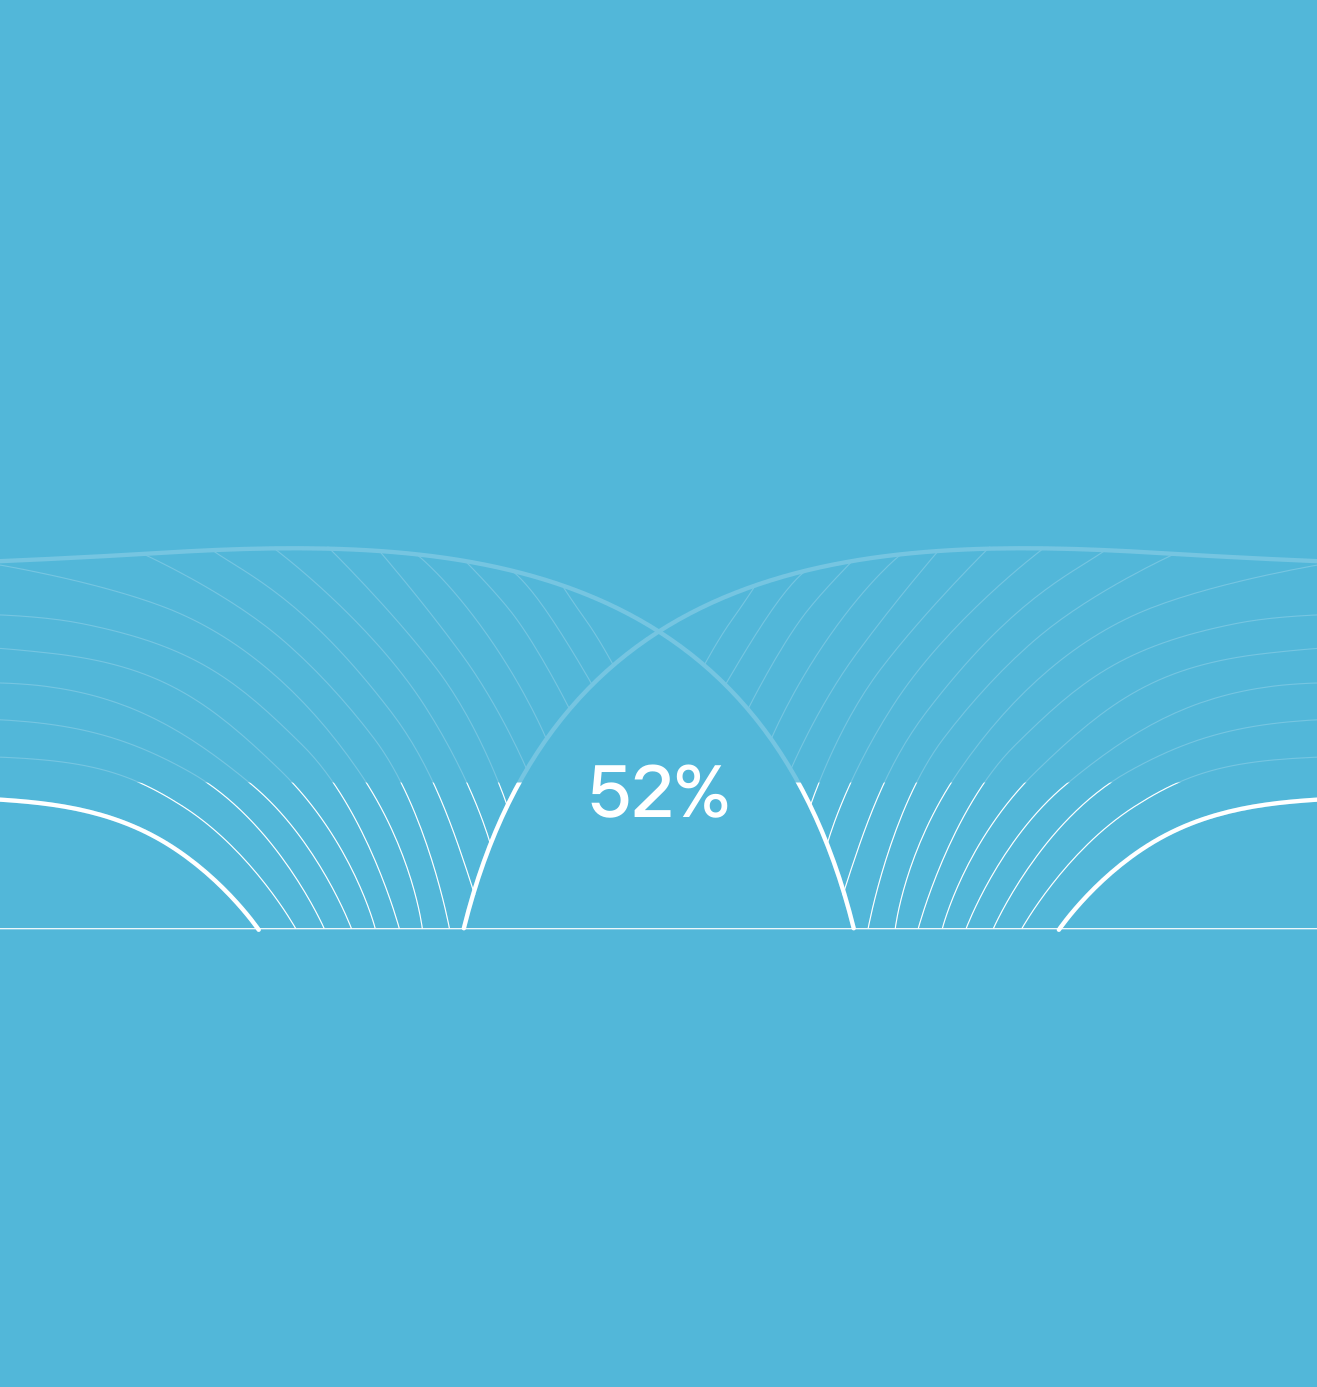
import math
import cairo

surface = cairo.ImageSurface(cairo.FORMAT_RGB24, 1317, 1387)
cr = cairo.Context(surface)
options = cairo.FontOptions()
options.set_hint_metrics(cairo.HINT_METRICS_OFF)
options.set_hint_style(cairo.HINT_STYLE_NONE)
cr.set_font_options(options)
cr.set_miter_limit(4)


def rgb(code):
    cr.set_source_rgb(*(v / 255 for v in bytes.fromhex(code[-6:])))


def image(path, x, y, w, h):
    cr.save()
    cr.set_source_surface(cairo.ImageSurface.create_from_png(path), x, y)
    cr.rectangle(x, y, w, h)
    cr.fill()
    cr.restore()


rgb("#52b7d9")
cr.paint()
image("img/1.png", 0, 546, 1317, 386)
image("img/2.png", 0, 782, 1317, 150)
cr.select_font_face("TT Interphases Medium")
cr.set_font_size(74)
rgb("#ffffff")
cr.move_to(588, 817)
cr.show_text("52%")
surface.write_to_png("page.png")
